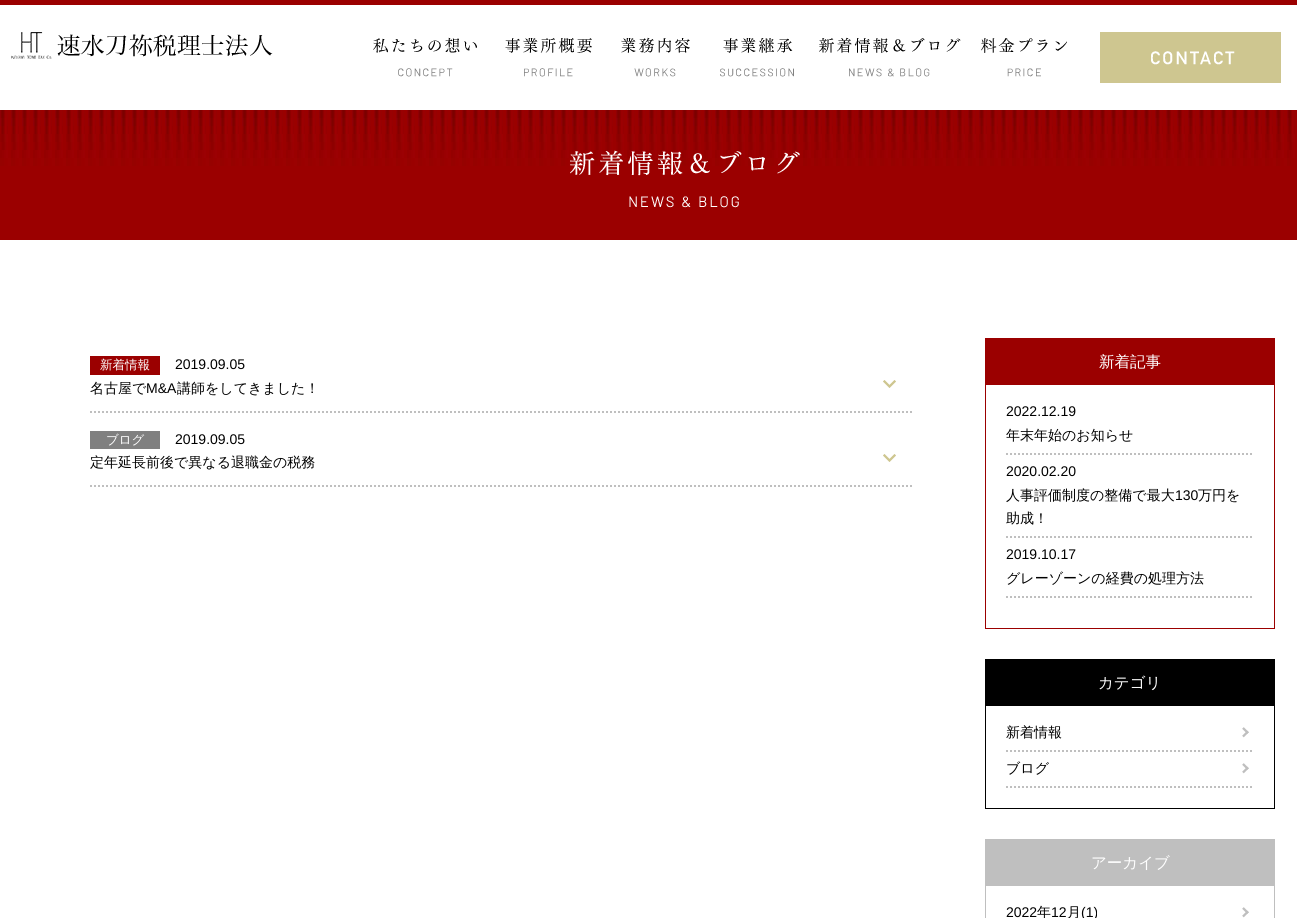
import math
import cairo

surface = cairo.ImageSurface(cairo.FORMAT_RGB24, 1297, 918)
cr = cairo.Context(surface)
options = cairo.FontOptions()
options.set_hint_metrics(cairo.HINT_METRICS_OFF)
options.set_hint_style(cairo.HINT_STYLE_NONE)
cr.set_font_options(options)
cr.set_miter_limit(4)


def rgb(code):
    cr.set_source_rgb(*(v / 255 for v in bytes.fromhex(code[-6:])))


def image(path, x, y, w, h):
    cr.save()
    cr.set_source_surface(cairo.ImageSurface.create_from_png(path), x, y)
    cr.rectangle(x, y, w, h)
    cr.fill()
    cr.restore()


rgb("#ffffff")
cr.paint()
rgb("#9b0000")
cr.rectangle(0, 0, 1297, 5)
cr.fill()
image("img/1.png", 11, 32, 262, 27)
image("img/2.png", 373, 37, 104, 40)
image("img/3.png", 505, 38, 87, 39)
image("img/4.png", 621, 37, 69, 40)
image("img/5.png", 720, 38, 74, 39)
image("img/6.png", 819, 37, 142, 40)
image("img/7.png", 981, 38, 86, 39)
image("img/8.png", 1100, 32, 181, 51)
cr.rectangle(0, 110, 1297, 130)
cr.fill()
image("img/9.png", 0, 110, 1295, 56)
image("img/10.png", 570, 150, 230, 58)
cr.rectangle(90, 356, 70, 19)
cr.fill()
image("img/11.png", 883, 380, 13, 8)
cr.new_path()
cr.move_to(90, 412)
cr.line_to(913, 412)
rgb("#bfbfbf")
cr.set_dash([2, 2])
cr.stroke()
rgb("#808080")
cr.rectangle(90, 431, 70, 18)
cr.fill()
image("img/11.png", 883, 454, 13, 8)
cr.new_path()
cr.move_to(90, 486)
cr.line_to(913, 486)
rgb("#bfbfbf")
cr.stroke()
cr.rectangle(985.5, 338.5, 289, 290)
rgb("#9b0000")
cr.set_line_width(1)
cr.set_dash([])
cr.stroke()
cr.rectangle(986, 339, 288, 46)
cr.fill()
cr.new_path()
cr.move_to(1006, 454)
cr.line_to(1254, 454)
rgb("#bfbfbf")
cr.set_line_width(2)
cr.set_dash([2, 2])
cr.stroke()
cr.new_path()
cr.move_to(1006, 537)
cr.line_to(1254, 537)
cr.stroke()
cr.new_path()
cr.move_to(1006, 597)
cr.line_to(1254, 597)
cr.stroke()
cr.rectangle(985.5, 659.5, 289, 149)
rgb("#000000")
cr.set_line_width(1)
cr.set_dash([])
cr.stroke()
cr.rectangle(986, 660, 288, 46)
cr.fill()
image("img/12.png", 1242, 727, 7, 11)
cr.new_path()
cr.move_to(1006, 751)
cr.line_to(1254, 751)
rgb("#bfbfbf")
cr.set_line_width(2)
cr.set_dash([2, 2])
cr.stroke()
image("img/12.png", 1242, 763, 7, 11)
cr.new_path()
cr.move_to(1006, 787)
cr.line_to(1254, 787)
cr.stroke()
cr.rectangle(985.5, 839.5, 289, 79)
cr.set_line_width(1)
cr.set_dash([])
cr.stroke()
cr.rectangle(986, 840, 288, 46)
cr.fill()
image("img/12.png", 1242, 907, 7, 11)
cr.select_font_face("WenQuanYi Zen Hei Medium")
cr.set_font_size(12.5)
rgb("#ffffff")
cr.move_to(100, 369)
cr.show_text("新着情報")
cr.select_font_face("Liberation Sans")
cr.set_font_size(14)
rgb("#000000")
cr.move_to(175, 369)
cr.show_text("2019.09.05")
cr.select_font_face("WenQuanYi Zen Hei Medium")
cr.move_to(90, 393)
cr.show_text("名古屋で")
cr.select_font_face("Liberation Sans")
cr.move_to(146, 393)
cr.show_text("M&A")
cr.select_font_face("WenQuanYi Zen Hei Medium")
cr.move_to(177, 393)
cr.show_text("講師をしてきました！")
cr.set_font_size(12.5)
rgb("#ffffff")
cr.move_to(106, 444)
cr.show_text("ブログ")
cr.select_font_face("Liberation Sans")
cr.set_font_size(14)
rgb("#000000")
cr.move_to(175, 444)
cr.show_text("2019.09.05")
cr.select_font_face("WenQuanYi Zen Hei Medium")
cr.move_to(90, 467)
cr.show_text("定年延長前後で異なる退職金の税務")
cr.set_font_size(15.5)
rgb("#ffffff")
cr.move_to(1099, 367)
cr.show_text("新着記事")
cr.select_font_face("Liberation Sans")
cr.set_font_size(14)
rgb("#000000")
cr.move_to(1006, 416)
cr.show_text("2022.12.19")
cr.select_font_face("WenQuanYi Zen Hei Medium")
cr.move_to(1006, 440)
cr.show_text("年末年始のお知らせ")
cr.select_font_face("Liberation Sans")
cr.move_to(1006, 476)
cr.show_text("2020.02.20")
cr.select_font_face("WenQuanYi Zen Hei Medium")
cr.move_to(1006, 500)
cr.show_text("人事評価制度の整備で最大")
cr.select_font_face("Liberation Sans")
cr.move_to(1175, 500)
cr.show_text("130")
cr.select_font_face("WenQuanYi Zen Hei Medium")
cr.move_to(1198, 500)
cr.show_text("万円を")
cr.move_to(1006, 523)
cr.show_text("助成！")
cr.select_font_face("Liberation Sans")
cr.move_to(1006, 559)
cr.show_text("2019.10.17")
cr.select_font_face("WenQuanYi Zen Hei Medium")
cr.move_to(1006, 583)
cr.show_text("グレーゾーンの経費の処理方法")
cr.set_font_size(15.5)
rgb("#ffffff")
cr.move_to(1098, 688)
cr.show_text("カテゴリ")
cr.set_font_size(14)
rgb("#000000")
cr.move_to(1006, 737)
cr.show_text("新着情報")
cr.move_to(1006, 773)
cr.show_text("ブログ")
cr.set_font_size(15.5)
rgb("#ffffff")
cr.move_to(1091, 868)
cr.show_text("アーカイブ")
cr.select_font_face("Liberation Sans")
cr.set_font_size(14)
rgb("#000000")
cr.move_to(1006, 917)
cr.show_text("2022")
cr.select_font_face("WenQuanYi Zen Hei Medium")
cr.move_to(1037, 917)
cr.show_text("年")
cr.select_font_face("Liberation Sans")
cr.move_to(1051, 917)
cr.show_text("12")
cr.select_font_face("WenQuanYi Zen Hei Medium")
cr.move_to(1067, 917)
cr.show_text("月")
cr.select_font_face("Liberation Sans")
cr.move_to(1081, 917)
cr.show_text("(1)")
surface.write_to_png("page.png")
